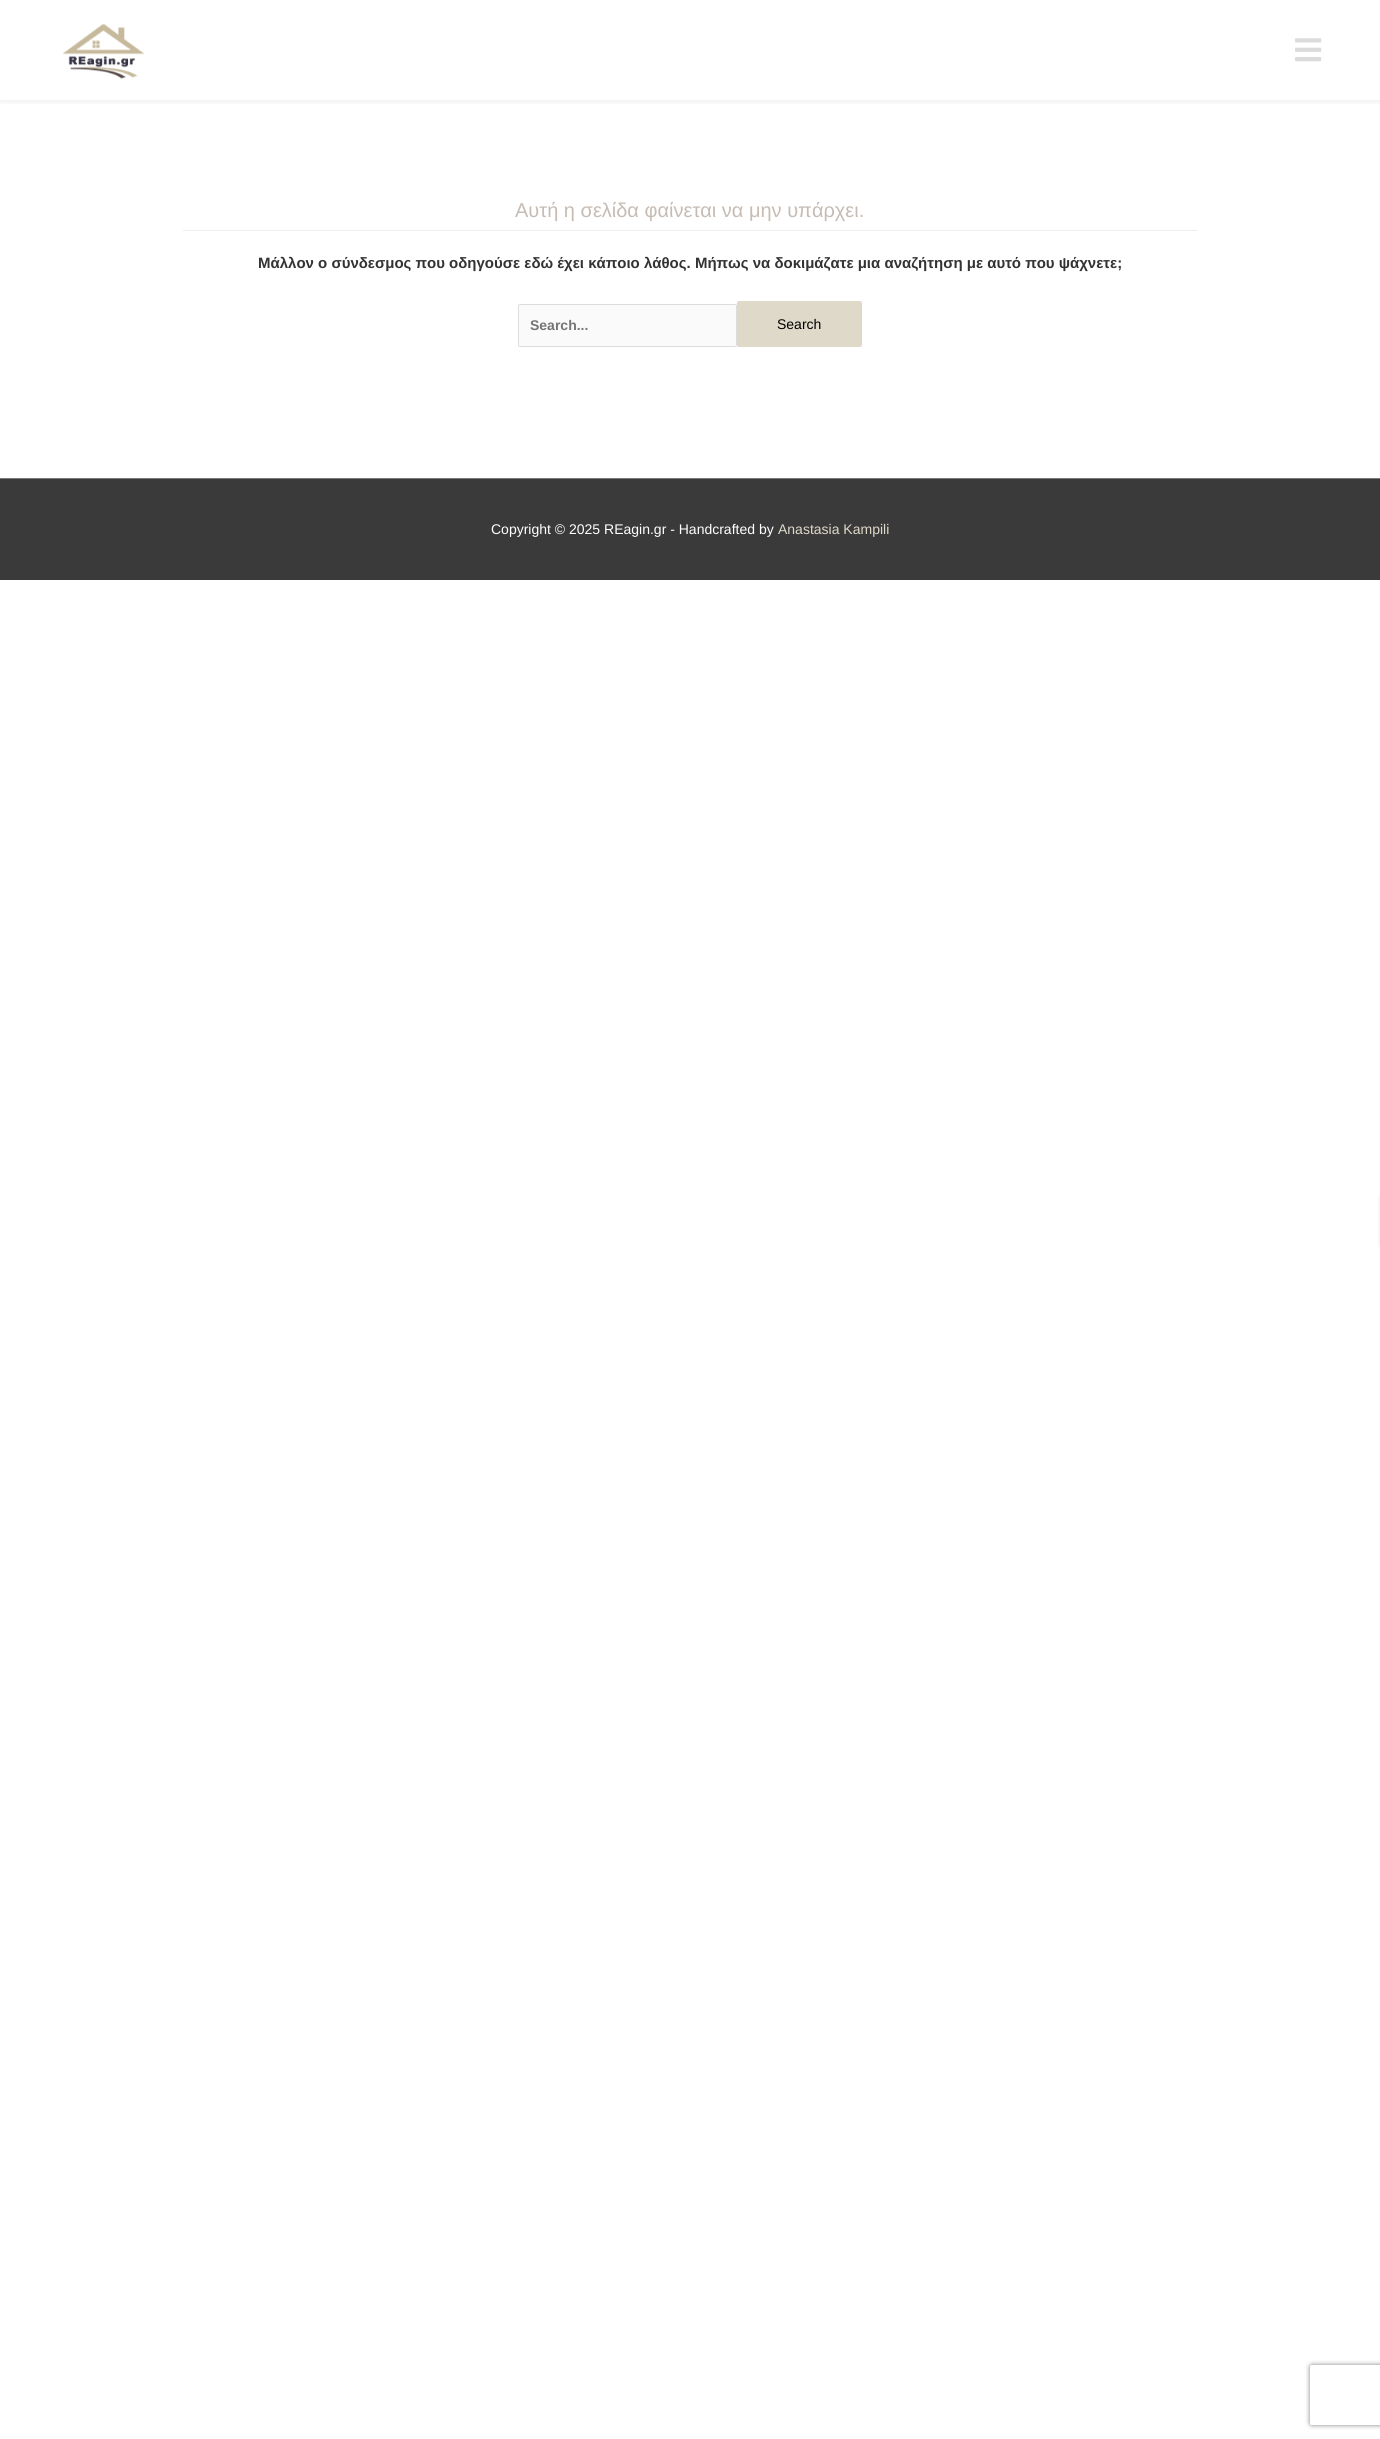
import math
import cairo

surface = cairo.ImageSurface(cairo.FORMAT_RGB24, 1380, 2439)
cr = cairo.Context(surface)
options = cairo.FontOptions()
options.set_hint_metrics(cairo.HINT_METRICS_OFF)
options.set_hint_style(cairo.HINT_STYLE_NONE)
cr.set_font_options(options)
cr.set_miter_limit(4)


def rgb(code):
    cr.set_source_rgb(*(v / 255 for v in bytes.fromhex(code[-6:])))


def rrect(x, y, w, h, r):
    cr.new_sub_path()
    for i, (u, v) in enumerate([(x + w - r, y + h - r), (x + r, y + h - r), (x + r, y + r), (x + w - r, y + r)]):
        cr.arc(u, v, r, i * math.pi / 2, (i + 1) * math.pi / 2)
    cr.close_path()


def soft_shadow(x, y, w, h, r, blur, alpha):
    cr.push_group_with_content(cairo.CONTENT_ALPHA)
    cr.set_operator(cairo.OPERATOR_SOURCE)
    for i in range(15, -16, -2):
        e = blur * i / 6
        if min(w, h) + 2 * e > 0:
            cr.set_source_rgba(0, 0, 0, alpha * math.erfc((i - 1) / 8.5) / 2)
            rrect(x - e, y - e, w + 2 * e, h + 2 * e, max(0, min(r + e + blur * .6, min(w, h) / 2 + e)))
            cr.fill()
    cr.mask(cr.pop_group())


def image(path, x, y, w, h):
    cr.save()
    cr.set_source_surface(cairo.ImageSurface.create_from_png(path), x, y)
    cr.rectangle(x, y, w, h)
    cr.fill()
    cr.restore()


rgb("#ffffff")
cr.paint()
cr.save()
cr.rectangle(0, 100, 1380, 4)
cr.clip()
rgb("#000000")
soft_shadow(0, 0, 1380, 100, 0, 5, 0.1)
cr.restore()
image("img/1.png", 63, 24, 81, 55)
image("img/2.png", 1295, 38, 27, 24)
rgb("#eeeeee")
cr.rectangle(183, 230, 1014, 1)
cr.fill()
rgb("#fafafa")
rrect(518.5, 304.5, 218, 42, 1.5)
cr.fill_preserve()
rgb("#dddddd")
cr.set_line_width(1)
cr.stroke()
rgb("#dfd9c9")
rrect(737, 301, 125, 46, 2)
cr.fill()
rgb("#7a7a7a")
cr.rectangle(0, 478, 1380, 1)
cr.fill()
rgb("#3a3a3a")
cr.rectangle(0, 479, 1380, 101)
cr.fill()
rgb("#777777")
soft_shadow(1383, 1197, 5, 48, 0, 2.5, 1)
cr.save()
cr.set_fill_rule(cairo.FILL_RULE_EVEN_ODD)
cr.new_path()
cr.move_to(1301, 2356)
cr.line_to(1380, 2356)
cr.line_to(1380, 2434)
cr.line_to(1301, 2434)
cr.close_path()
cr.move_to(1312, 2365)
cr.line_to(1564, 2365)
cr.curve_to(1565, 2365, 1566, 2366, 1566, 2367)
cr.line_to(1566, 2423)
cr.curve_to(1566, 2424, 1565, 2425, 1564, 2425)
cr.line_to(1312, 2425)
cr.curve_to(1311, 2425, 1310, 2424, 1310, 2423)
cr.line_to(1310, 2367)
cr.curve_to(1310, 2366, 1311, 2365, 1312, 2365)
cr.close_path()
cr.clip()
rgb("#808080")
soft_shadow(1310, 2365, 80, 60, 2, 2.5, 1)
cr.restore()
cr.select_font_face("Liberation Sans")
cr.set_font_size(20)
rgb("#c6bcb3")
cr.move_to(515, 217)
cr.show_text("Αυτή η σελίδα φαίνεται να μην υπάρχει.")
cr.select_font_face("Liberation Sans", cairo.FONT_SLANT_NORMAL, cairo.FONT_WEIGHT_BOLD)
cr.set_font_size(15)
rgb("#333333")
cr.move_to(258, 268)
cr.show_text("Μάλλον ο σύνδεσμος που οδηγούσε εδώ έχει κάποιο λάθος. Μήπως να δοκιμάζατε μια αναζήτηση με αυτό που ψάχνετε;")
cr.set_font_size(14)
rgb("#757575")
cr.move_to(530, 330)
cr.show_text("Search...")
cr.select_font_face("Liberation Sans")
rgb("#000000")
cr.move_to(777, 329)
cr.show_text("Search")
rgb("#ffffff")
cr.move_to(491, 534)
cr.show_text("Copyright © 2025 REagin.gr - Handcrafted by")
rgb("#dfd9c9")
cr.move_to(778, 534)
cr.show_text("Anastasia Kampili")
surface.write_to_png("page.png")
